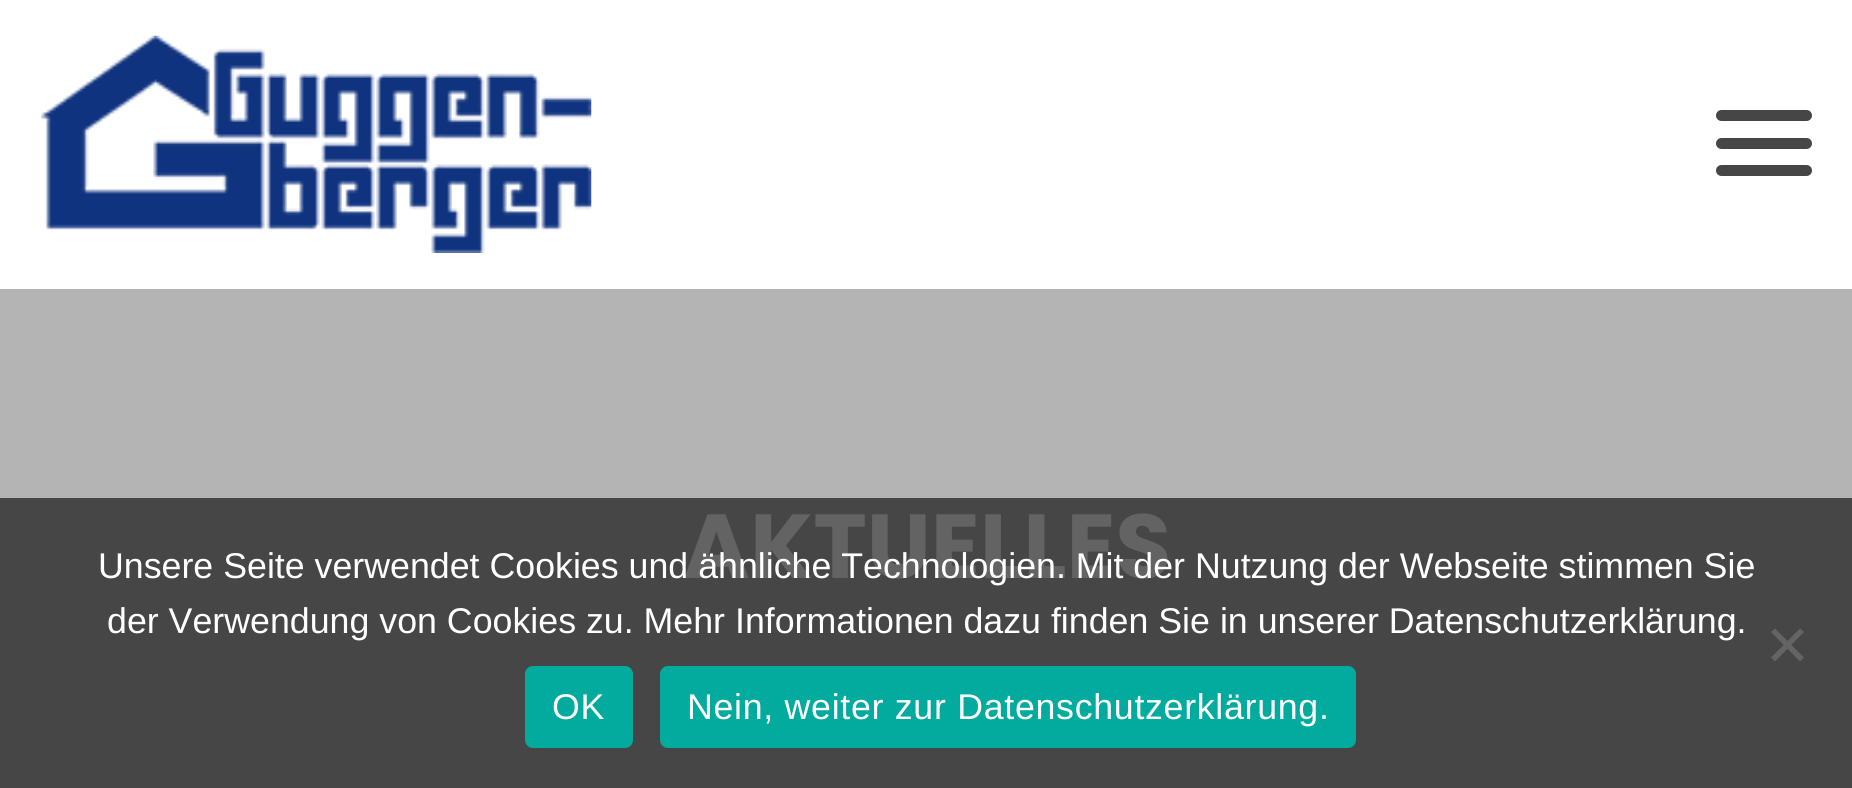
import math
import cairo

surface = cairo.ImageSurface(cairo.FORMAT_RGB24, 1852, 788)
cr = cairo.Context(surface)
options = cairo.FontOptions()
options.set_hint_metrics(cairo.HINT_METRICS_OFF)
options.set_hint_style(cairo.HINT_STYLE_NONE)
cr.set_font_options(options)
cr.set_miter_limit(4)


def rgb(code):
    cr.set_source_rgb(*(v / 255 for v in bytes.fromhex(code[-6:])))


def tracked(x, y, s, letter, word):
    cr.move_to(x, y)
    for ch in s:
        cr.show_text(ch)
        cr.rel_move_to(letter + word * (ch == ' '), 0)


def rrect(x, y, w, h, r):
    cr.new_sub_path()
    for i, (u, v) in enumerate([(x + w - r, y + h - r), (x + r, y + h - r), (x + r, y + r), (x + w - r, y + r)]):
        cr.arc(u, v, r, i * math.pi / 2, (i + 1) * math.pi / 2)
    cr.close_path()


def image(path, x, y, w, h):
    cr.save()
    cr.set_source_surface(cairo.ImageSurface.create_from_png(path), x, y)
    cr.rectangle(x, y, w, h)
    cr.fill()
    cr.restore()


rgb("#ffffff")
cr.paint()
image("img/1.png", 41, 35, 551, 218)
rgb("#464646")
rrect(1716, 165, 96, 11, 5.5)
cr.fill()
rrect(1716, 110, 96, 11, 5.5)
cr.fill()
rrect(1716, 138, 96, 11, 5.5)
cr.fill()
rgb("#b4b4b4")
cr.rectangle(0, 289, 1852, 209)
cr.fill()
rgb("#464646")
cr.rectangle(0, 498, 1852, 290)
cr.fill()
rgb("#646464")
cr.new_path()
cr.move_to(1800, 628.5)
cr.line_to(1804, 632)
cr.line_to(1775, 661.5)
cr.line_to(1771, 657.5)
cr.close_path()
cr.fill()
cr.new_path()
cr.move_to(1771, 632)
cr.line_to(1775, 628.5)
cr.line_to(1804, 657.5)
cr.line_to(1800, 661.5)
cr.close_path()
cr.fill()
rgb("#03aa9e")
rrect(525, 666, 108, 82, 8)
cr.fill()
rrect(660, 666, 696, 82, 8)
cr.fill()
cr.select_font_face("Poppins", cairo.FONT_SLANT_NORMAL, cairo.FONT_WEIGHT_BOLD)
cr.set_font_size(90.75)
rgb("#636363")
cr.move_to(683, 578)
cr.show_text("AKTUELLES")
cr.select_font_face("Liberation Sans")
cr.set_font_size(35.75)
rgb("#ffffff")
cr.move_to(98, 578)
cr.show_text("Unsere Seite verwendet Cookies und ähnliche Technologien. Mit der Nutzung der Webseite stimmen Sie")
cr.move_to(107, 633)
cr.show_text("der Verwendung von Cookies zu. Mehr Informationen dazu finden Sie in unserer Datenschutzerklärung.")
tracked(552, 719, "OK", 0.7, 0)
tracked(687, 719, "Nein, weiter zur Datenschutzerklärung.", 0.7, 0)
surface.write_to_png("page.png")
